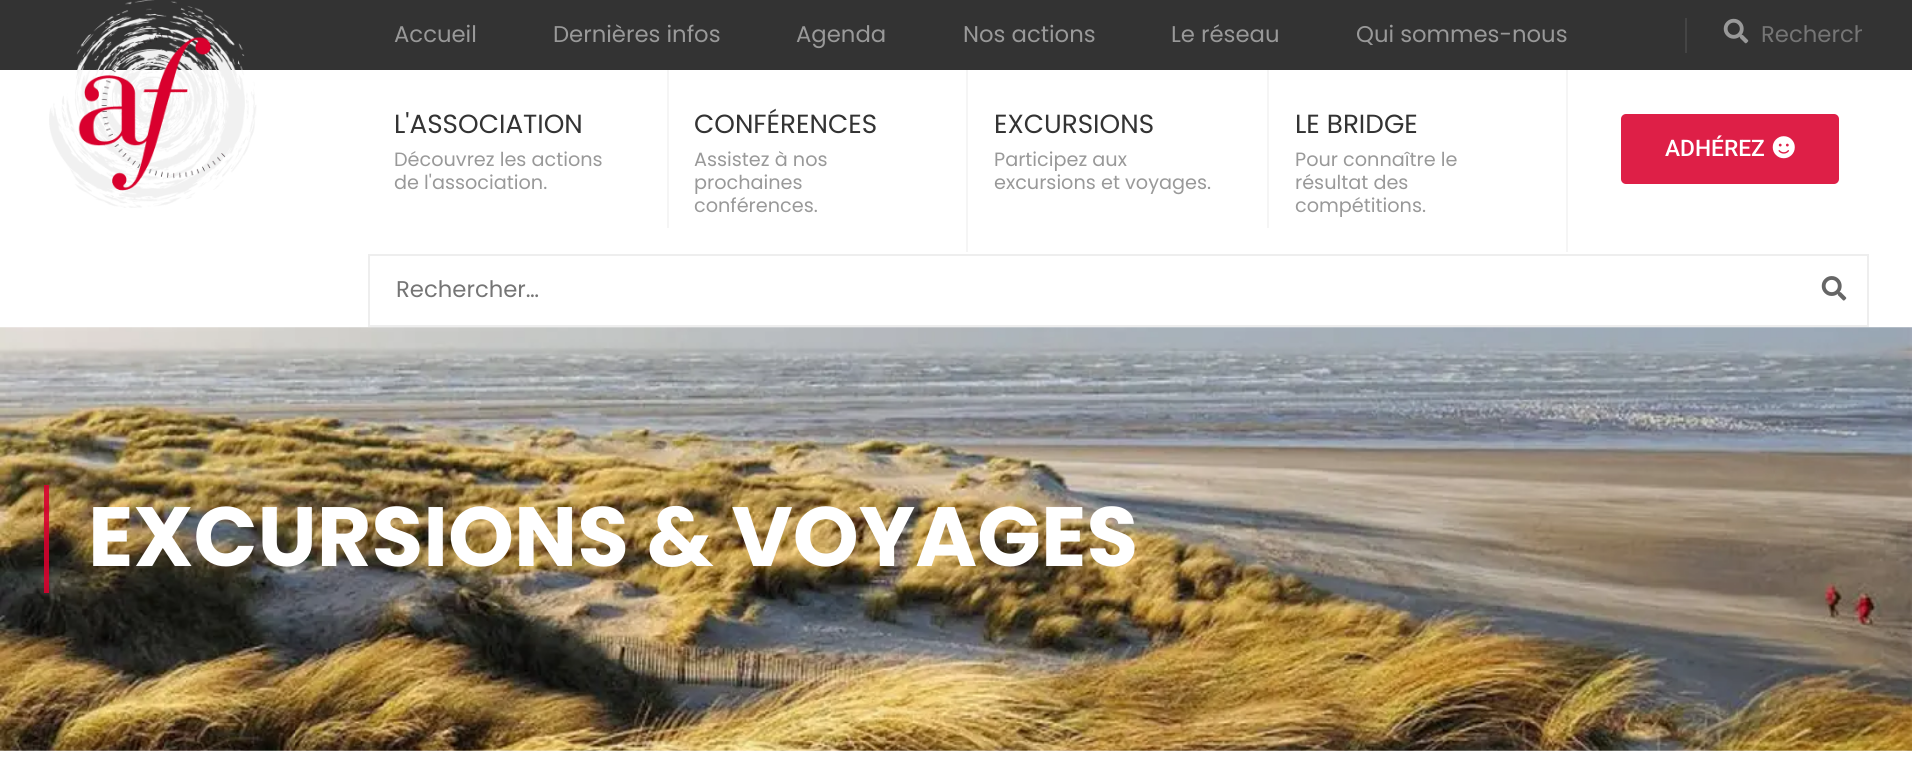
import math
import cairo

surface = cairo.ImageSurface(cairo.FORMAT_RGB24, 1912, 774)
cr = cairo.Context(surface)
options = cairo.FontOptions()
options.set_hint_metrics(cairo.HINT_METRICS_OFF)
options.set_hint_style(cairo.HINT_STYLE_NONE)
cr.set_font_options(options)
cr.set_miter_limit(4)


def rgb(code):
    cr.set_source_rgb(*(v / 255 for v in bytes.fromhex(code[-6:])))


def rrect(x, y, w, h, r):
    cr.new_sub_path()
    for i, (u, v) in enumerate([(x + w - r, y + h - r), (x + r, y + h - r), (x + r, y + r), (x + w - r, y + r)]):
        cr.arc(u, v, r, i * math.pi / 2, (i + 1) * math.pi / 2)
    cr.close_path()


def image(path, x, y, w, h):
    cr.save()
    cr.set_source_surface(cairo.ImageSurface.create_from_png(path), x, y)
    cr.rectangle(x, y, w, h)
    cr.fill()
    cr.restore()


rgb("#ffffff")
cr.paint()
rgb("#333333")
cr.rectangle(0, 0, 1912, 70)
cr.fill()
rgb("#444444")
cr.rectangle(1685, 18, 2, 35)
cr.fill()
image("img/1.png", 1723, 18, 26, 26)
image("img/2.png", 49, 0, 208, 208)
for x, y, w, h, color in [
    (667, 70, 2, 158, "#f5f5f5"),
    (966, 70, 2, 182, "#f5f5f5"),
    (1267, 70, 2, 158, "#f5f5f5"),
    (1566, 70, 2, 182, "#f5f5f5"),
]:
    rgb(color)
    cr.rectangle(x, y, w, h)
    cr.fill()
rgb("#de1f47")
rrect(1621, 114, 218, 70, 5)
cr.fill()
image("img/3.png", 1772, 136, 23, 23)
cr.rectangle(369, 255, 1499, 71)
rgb("#eeeeee")
cr.stroke()
image("img/4.png", 1821, 276, 26, 25)
image("img/5.png", 0, 327, 1912, 424)
cr.set_source_rgba(0.851, 0, 0.18, 0.88)
cr.rectangle(44, 485, 5, 108)
cr.fill()
cr.select_font_face("Poppins")
cr.set_font_size(22.75)
rgb("#999999")
for x, y, s in [
    (394, 42, "Accueil"),
    (553, 42, "Dernières infos"),
    (796, 42, "Agenda"),
    (963, 42, "Nos actions"),
    (1171, 42, "Le réseau"),
    (1356, 42, "Qui sommes-nous"),
]:
    cr.move_to(x, y)
    cr.show_text(s)
cr.save()
cr.rectangle(1761, 18, 101, 35)
cr.clip()
rgb("#757575")
cr.move_to(1761, 42)
cr.show_text("Recherch")
cr.restore()
cr.set_font_size(26.25)
rgb("#333333")
cr.move_to(394, 133)
cr.show_text("L'ASSOCIATION")
cr.set_font_size(19.25)
rgb("#999999")
cr.move_to(394, 166)
cr.show_text("Découvrez les actions")
cr.move_to(394, 189)
cr.show_text("de l'association.")
cr.set_font_size(26.25)
rgb("#333333")
cr.move_to(694, 133)
cr.show_text("CONFÉRENCES")
cr.set_font_size(19.25)
rgb("#999999")
for x, y, s in [
    (694, 166, "Assistez à nos"),
    (694, 189, "prochaines"),
    (694, 212, "conférences."),
]:
    cr.move_to(x, y)
    cr.show_text(s)
cr.set_font_size(26.25)
rgb("#333333")
cr.move_to(994, 133)
cr.show_text("EXCURSIONS")
cr.set_font_size(19.25)
rgb("#999999")
cr.move_to(994, 166)
cr.show_text("Participez aux")
cr.move_to(994, 189)
cr.show_text("excursions et voyages.")
cr.set_font_size(26.25)
rgb("#333333")
cr.move_to(1295, 133)
cr.show_text("LE BRIDGE")
cr.set_font_size(19.25)
rgb("#999999")
for x, y, s in [
    (1295, 166, "Pour connaître le"),
    (1295, 189, "résultat des"),
    (1295, 212, "compétitions."),
]:
    cr.move_to(x, y)
    cr.show_text(s)
cr.select_font_face("Roboto Medium")
cr.set_font_size(22.75)
rgb("#ffffff")
cr.move_to(1665, 156)
cr.show_text("ADHÉREZ")
cr.select_font_face("Poppins")
rgb("#757575")
cr.move_to(396, 297)
cr.show_text("Rechercher…")
cr.select_font_face("Poppins", cairo.FONT_SLANT_NORMAL, cairo.FONT_WEIGHT_BOLD)
cr.set_font_size(84)
rgb("#ffffff")
cr.move_to(88, 566)
cr.show_text("EXCURSIONS & VOYAGES")
surface.write_to_png("page.png")
